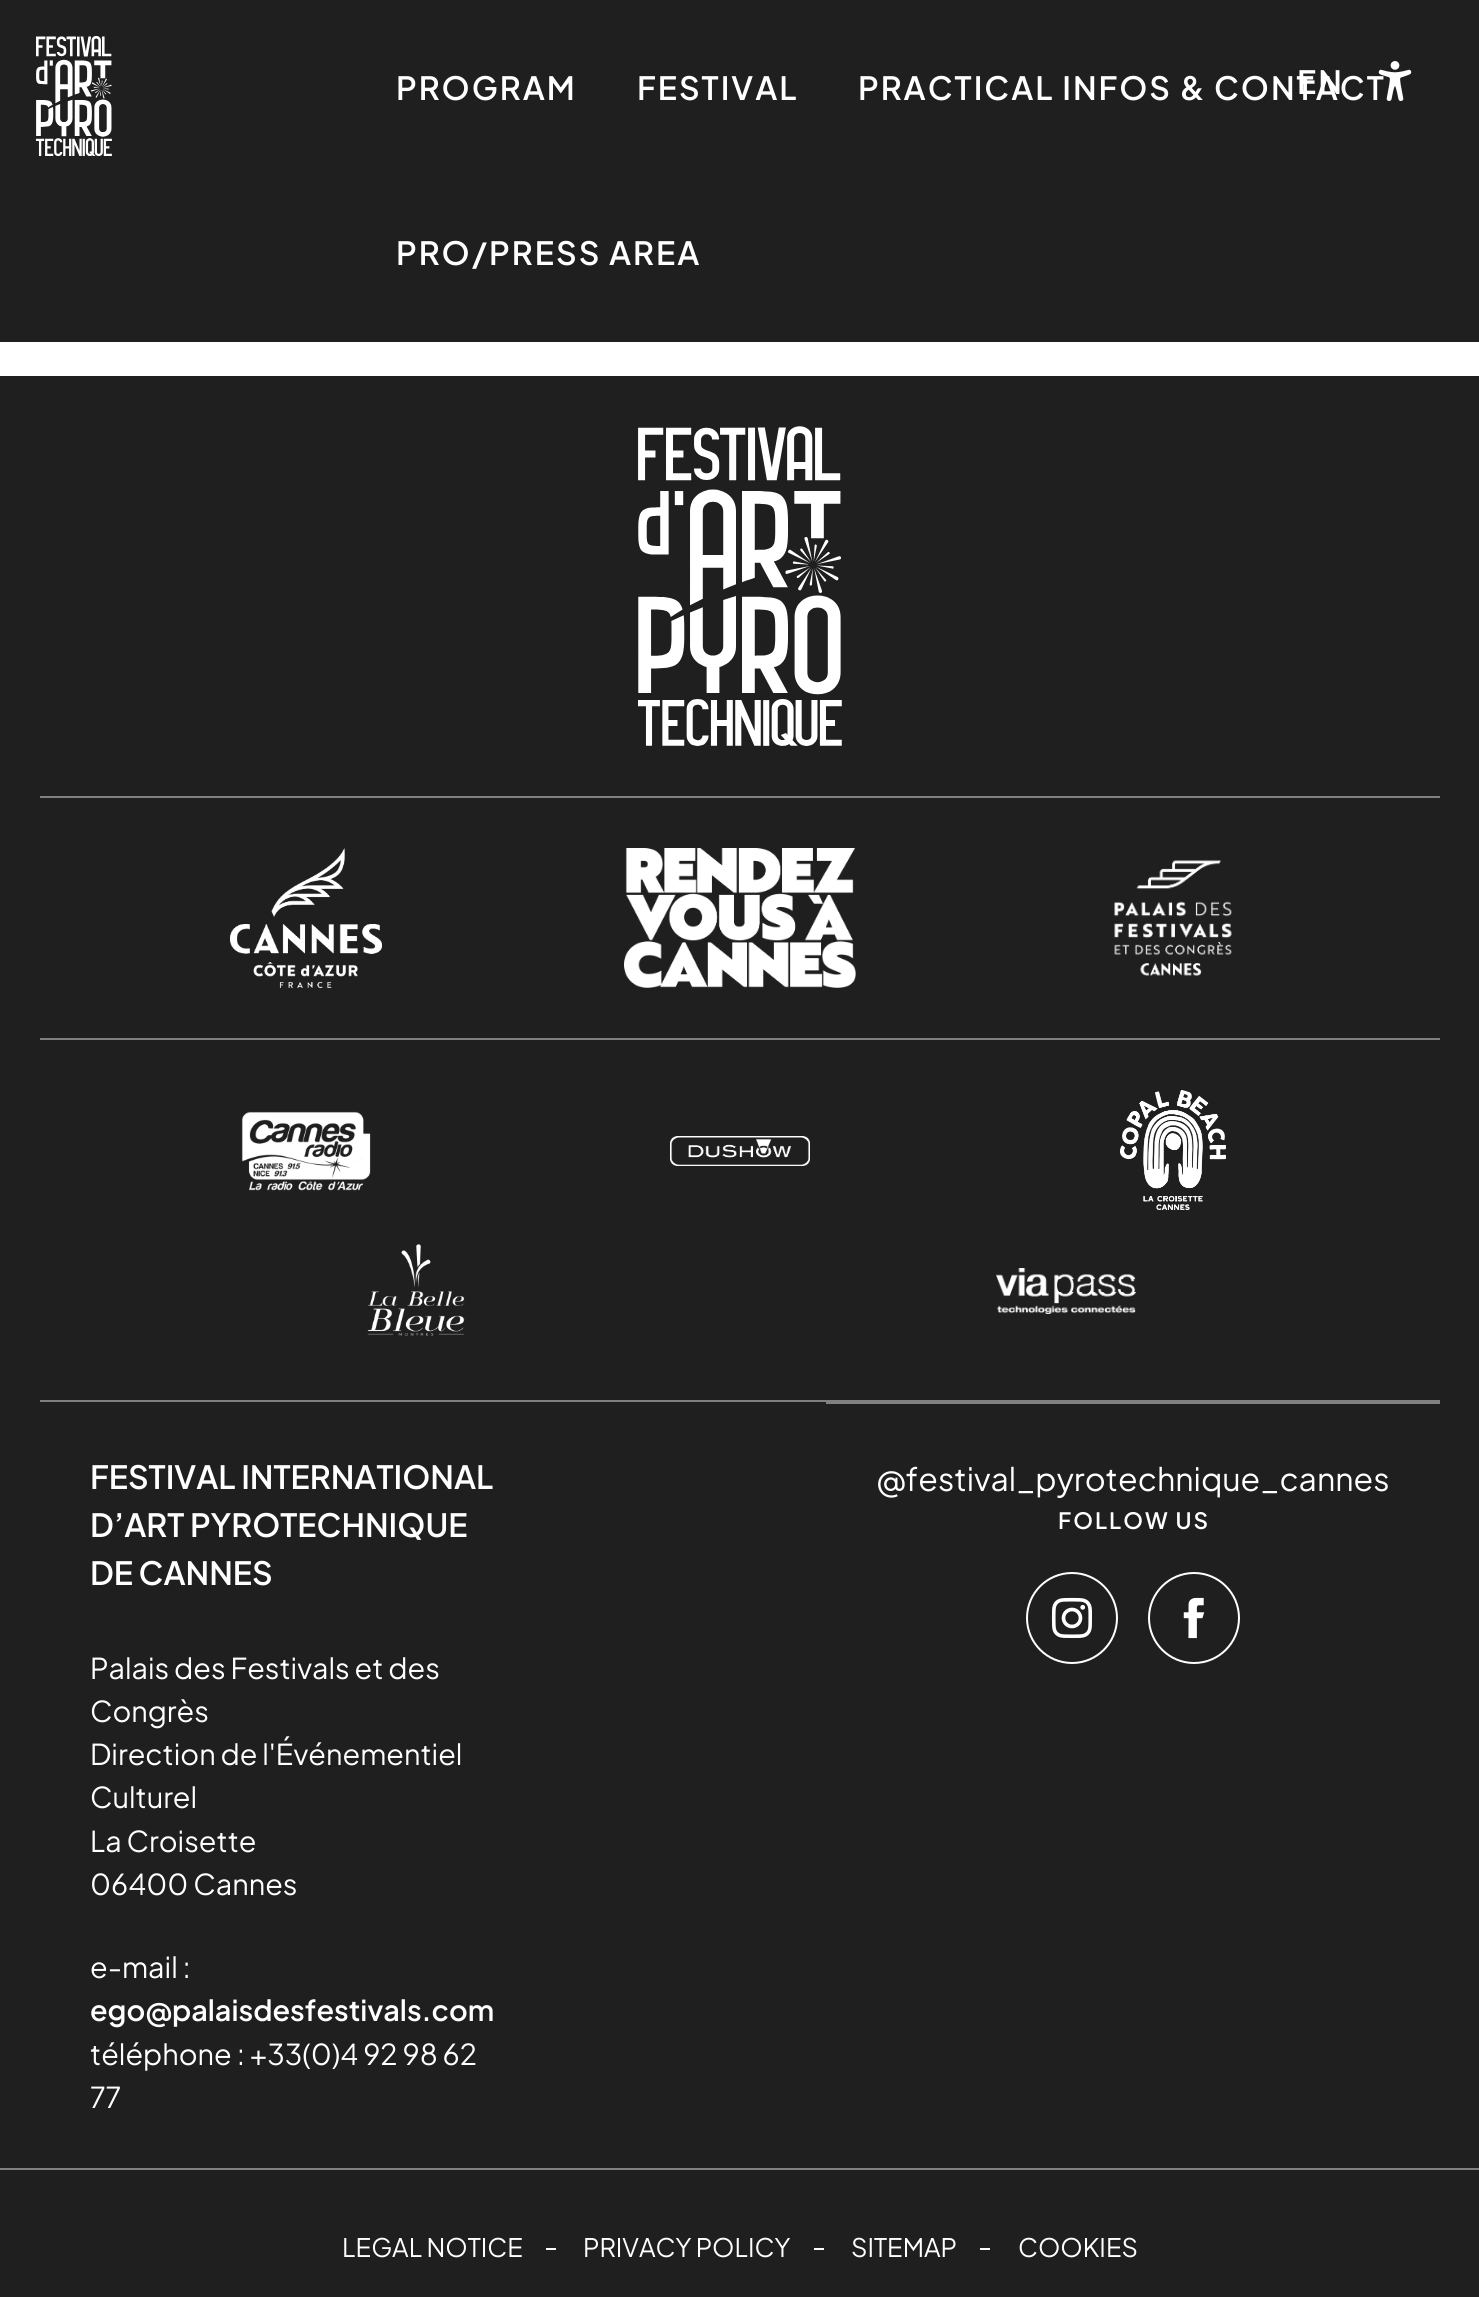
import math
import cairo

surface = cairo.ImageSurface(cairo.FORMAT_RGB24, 1479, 2297)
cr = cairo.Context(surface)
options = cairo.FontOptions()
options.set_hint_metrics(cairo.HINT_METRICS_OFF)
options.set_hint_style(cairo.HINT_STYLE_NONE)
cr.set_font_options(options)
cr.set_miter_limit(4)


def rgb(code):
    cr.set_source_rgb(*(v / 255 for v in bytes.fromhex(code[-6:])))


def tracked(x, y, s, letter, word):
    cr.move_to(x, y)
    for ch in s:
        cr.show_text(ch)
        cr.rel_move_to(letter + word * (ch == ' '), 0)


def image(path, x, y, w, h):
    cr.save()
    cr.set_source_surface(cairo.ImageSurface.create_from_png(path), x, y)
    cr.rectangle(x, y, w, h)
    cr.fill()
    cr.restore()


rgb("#ffffff")
cr.paint()
rgb("#1f1f1f")
cr.rectangle(0, 0, 1479, 342)
cr.fill()
image("img/2.png", 36, 36, 76, 120)
cr.rectangle(0, 376, 1479, 1921)
cr.fill()
rgb("#808080")
cr.rectangle(40, 796, 1400, 2)
cr.fill()
image("img/3.png", 638, 426, 204, 320)
cr.rectangle(40, 1038, 1400, 2)
cr.fill()
image("img/4.png", 230, 848, 152, 140)
image("img/5.png", 624, 848, 232, 140)
image("img/6.png", 1114, 860, 118, 116)
image("img/7.png", 241, 1111, 130, 80)
image("img/8.png", 670, 1136, 140, 30)
image("img/9.png", 1120, 1090, 106, 120)
image("img/10.png", 367, 1244, 98, 92)
image("img/11.png", 996, 1268, 140, 46)
cr.rectangle(40, 1400, 1400, 2)
cr.fill()
cr.rectangle(826, 1402, 614, 2)
cr.fill()
cr.arc(1072, 1618, 45, 0, 2 * math.pi)
rgb("#ffffff")
cr.stroke()
image("img/12.png", 1051, 1597, 41, 41)
cr.arc(1194, 1618, 45, 0, 2 * math.pi)
cr.stroke()
image("img/13.png", 1183, 1597, 22, 42)
for x, y, w, h, color in [
    (0, 2168, 1479, 2, "#808080"),
    (546, 2248, 10, 2, "#ffffff"),
    (814, 2248, 10, 2, "#ffffff"),
    (980, 2248, 10, 2, "#ffffff"),
]:
    rgb(color)
    cr.rectangle(x, y, w, h)
    cr.fill()
cr.select_font_face("Plus Jakarta Sans SemiBold")
cr.set_font_size(32)
for x, y, s in [
    (396, 100, "PROGRAM"),
    (637, 100, "FESTIVAL"),
    (858, 100, "PRACTICAL INFOS & CONTACT"),
    (1297, 94, "EN"),
]:
    tracked(x, y, s, 2, 0)
image("img/1.png", 1378, 61, 34, 40)
tracked(396, 265, "PRO/PRESS AREA", 2, 0)
for x, y, s in [
    (90, 1489, "FESTIVAL INTERNATIONAL"),
    (90, 1537, "D’ART PYROTECHNIQUE"),
    (90, 1585, "DE CANNES"),
]:
    cr.move_to(x, y)
    cr.show_text(s)
cr.select_font_face("Plus Jakarta Sans")
cr.set_font_size(28.75)
for x, y, s in [
    (90, 1679, "Palais des Festivals et des"),
    (90, 1722, "Congrès"),
    (90, 1765, "Direction de l'Événementiel"),
    (90, 1808, "Culturel"),
    (90, 1852, "La Croisette"),
    (90, 1895, "06400 Cannes"),
    (90, 1978, "e-mail :"),
]:
    cr.move_to(x, y)
    cr.show_text(s)
cr.select_font_face("Plus Jakarta Sans SemiBold")
cr.move_to(90, 2021)
cr.show_text("ego@palaisdesfestivals.com")
cr.select_font_face("Plus Jakarta Sans")
cr.move_to(90, 2065)
cr.show_text("téléphone : +33(0)4 92 98 62")
cr.move_to(90, 2108)
cr.show_text("77")
cr.set_font_size(32)
cr.move_to(876, 1491)
cr.show_text("@festival_pyrotechnique_cannes")
cr.select_font_face("Plus Jakarta Sans SemiBold")
cr.set_font_size(22.5)
tracked(1058, 1529, "FOLLOW US", 2, 0)
cr.select_font_face("Plus Jakarta Sans")
cr.set_font_size(25.5)
for x, y, s in [
    (342, 2257, "LEGAL NOTICE"),
    (583, 2257, "PRIVACY POLICY"),
    (851, 2257, "SITEMAP"),
    (1018, 2257, "COOKIES"),
]:
    cr.move_to(x, y)
    cr.show_text(s)
surface.write_to_png("page.png")
